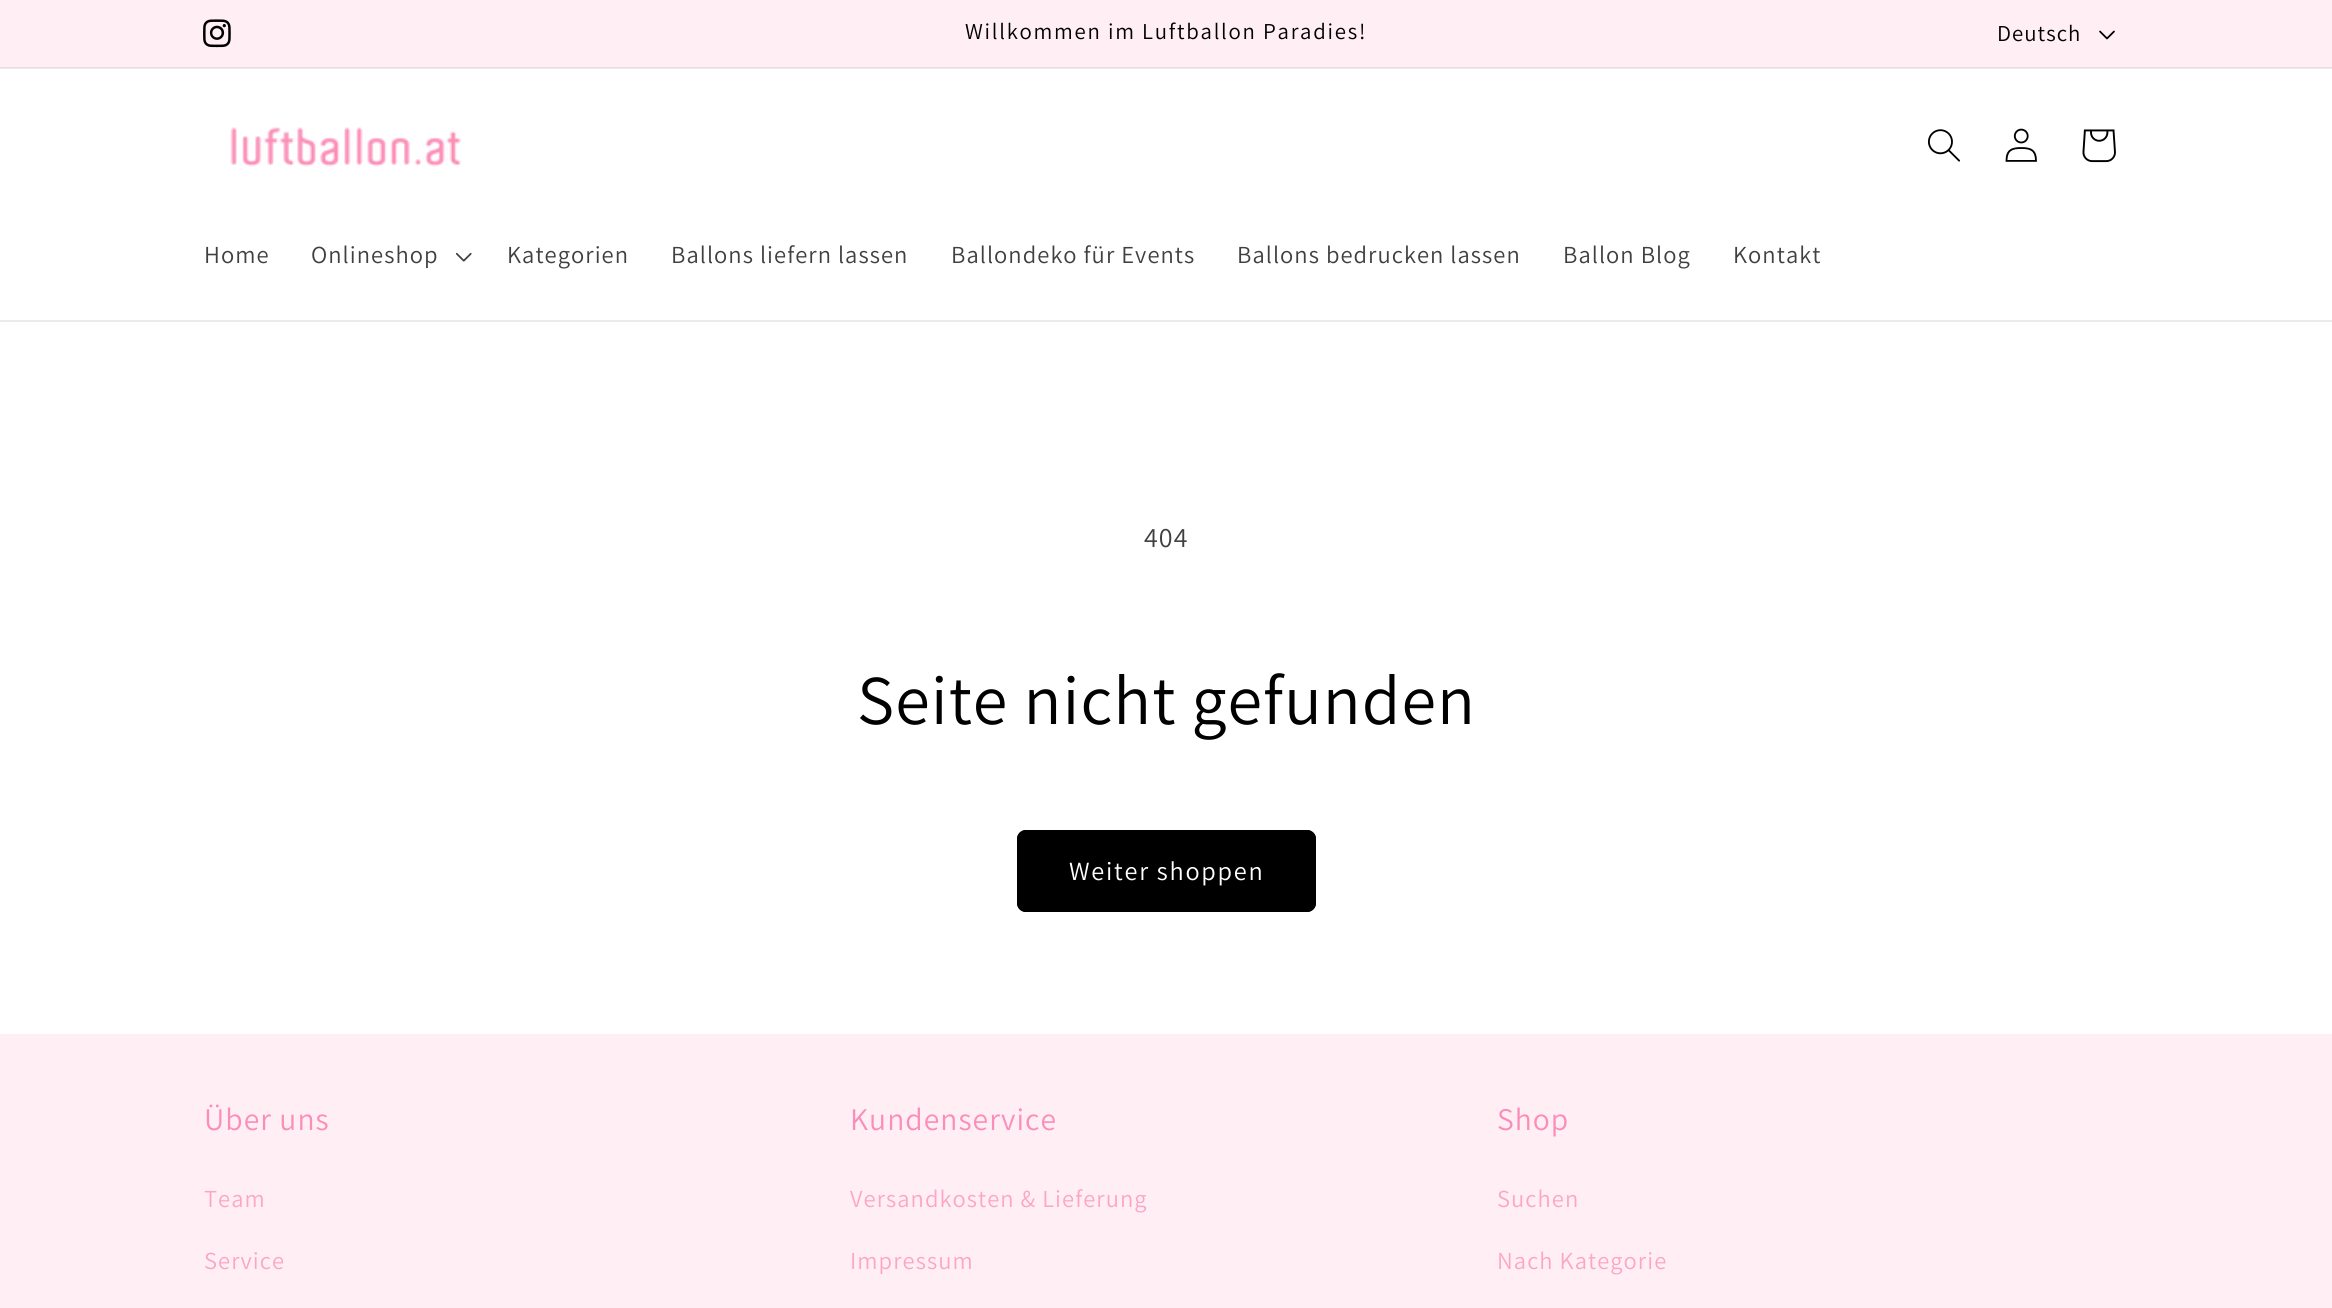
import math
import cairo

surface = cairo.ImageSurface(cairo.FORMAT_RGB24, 2332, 1308)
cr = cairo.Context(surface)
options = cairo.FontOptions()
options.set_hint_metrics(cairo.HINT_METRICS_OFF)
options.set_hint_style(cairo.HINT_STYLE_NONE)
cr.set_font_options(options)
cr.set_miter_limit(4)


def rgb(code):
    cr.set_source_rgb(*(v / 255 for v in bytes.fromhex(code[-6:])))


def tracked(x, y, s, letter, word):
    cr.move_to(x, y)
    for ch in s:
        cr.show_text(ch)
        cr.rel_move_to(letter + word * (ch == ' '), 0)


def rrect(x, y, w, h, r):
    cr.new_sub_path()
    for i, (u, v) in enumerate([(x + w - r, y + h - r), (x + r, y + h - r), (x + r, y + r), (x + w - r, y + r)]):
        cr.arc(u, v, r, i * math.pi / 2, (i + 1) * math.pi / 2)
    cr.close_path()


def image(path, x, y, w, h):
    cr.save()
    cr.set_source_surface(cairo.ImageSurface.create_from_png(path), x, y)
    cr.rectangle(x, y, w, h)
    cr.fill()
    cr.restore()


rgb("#ffffff")
cr.paint()
for x, y, w, h, color in [
    (0, 68, 2332, 1, "#ebebeb"),
    (0, 0, 2332, 67, "#ffeff5"),
    (0, 67, 2332, 1, "#ebdce1"),
]:
    rgb(color)
    cr.rectangle(x, y, w, h)
    cr.fill()
image("img/1.png", 203, 19, 28, 29)
image("img/2.png", 2099, 30, 16, 10)
rgb("#ebebeb")
cr.rectangle(0, 320, 2332, 2)
cr.fill()
image("img/3.png", 230, 127, 231, 40)
image("img/4.png", 1928, 129, 32, 33)
image("img/5.png", 2005, 128, 32, 34)
image("img/6.png", 2082, 129, 34, 34)
image("img/7.png", 455, 252, 17, 10)
rgb("#000000")
rrect(1017, 830, 299, 82, 9)
cr.fill()
rrect(1018, 831, 297, 80, 8)
cr.stroke()
rgb("#ffeff5")
cr.rectangle(0, 1034, 2332, 274)
cr.fill()
cr.select_font_face("Assistant")
cr.set_font_size(22.75)
rgb("#000000")
tracked(965, 39, "Willkommen im Luftballon Paradies!", 1.75, 0)
tracked(1997, 41, "Deutsch", 1.05, 0)
cr.set_font_size(24.5)
rgb("#404040")
for x, y, s in [
    (204, 263, "Home"),
    (311, 263, "Onlineshop"),
    (507, 263, "Kategorien"),
    (671, 263, "Ballons liefern lassen"),
    (951, 263, "Ballondeko für Events"),
    (1237, 263, "Ballons bedrucken lassen"),
    (1563, 263, "Ballon Blog"),
    (1733, 263, "Kontakt"),
]:
    tracked(x, y, s, 1.05, 0)
cr.set_font_size(28)
tracked(1144, 547, "404", 1.05, 0)
cr.set_font_size(70)
rgb("#000000")
tracked(857, 724, "Seite nicht gefunden", 1.05, 0)
cr.set_font_size(26.25)
rgb("#ffffff")
tracked(1069, 880, "Weiter shoppen", 1.75, 0)
cr.set_font_size(31.5)
rgb("#fb8eb8")
tracked(204, 1130, "Über uns", 1.05, 0)
cr.set_font_size(24.5)
rgb("#fca6c7")
tracked(204, 1207, "Team", 1.05, 0)
tracked(204, 1269, "Service", 1.05, 0)
cr.set_font_size(31.5)
rgb("#fb8eb8")
tracked(850, 1130, "Kundenservice", 1.05, 0)
cr.set_font_size(24.5)
rgb("#fca6c7")
tracked(850, 1207, "Versandkosten & Lieferung", 1.05, 0)
tracked(850, 1269, "Impressum", 1.05, 0)
cr.set_font_size(31.5)
rgb("#fb8eb8")
tracked(1497, 1130, "Shop", 1.05, 0)
cr.set_font_size(24.5)
rgb("#fca6c7")
tracked(1497, 1207, "Suchen", 1.05, 0)
tracked(1497, 1269, "Nach Kategorie", 1.05, 0)
surface.write_to_png("page.png")
